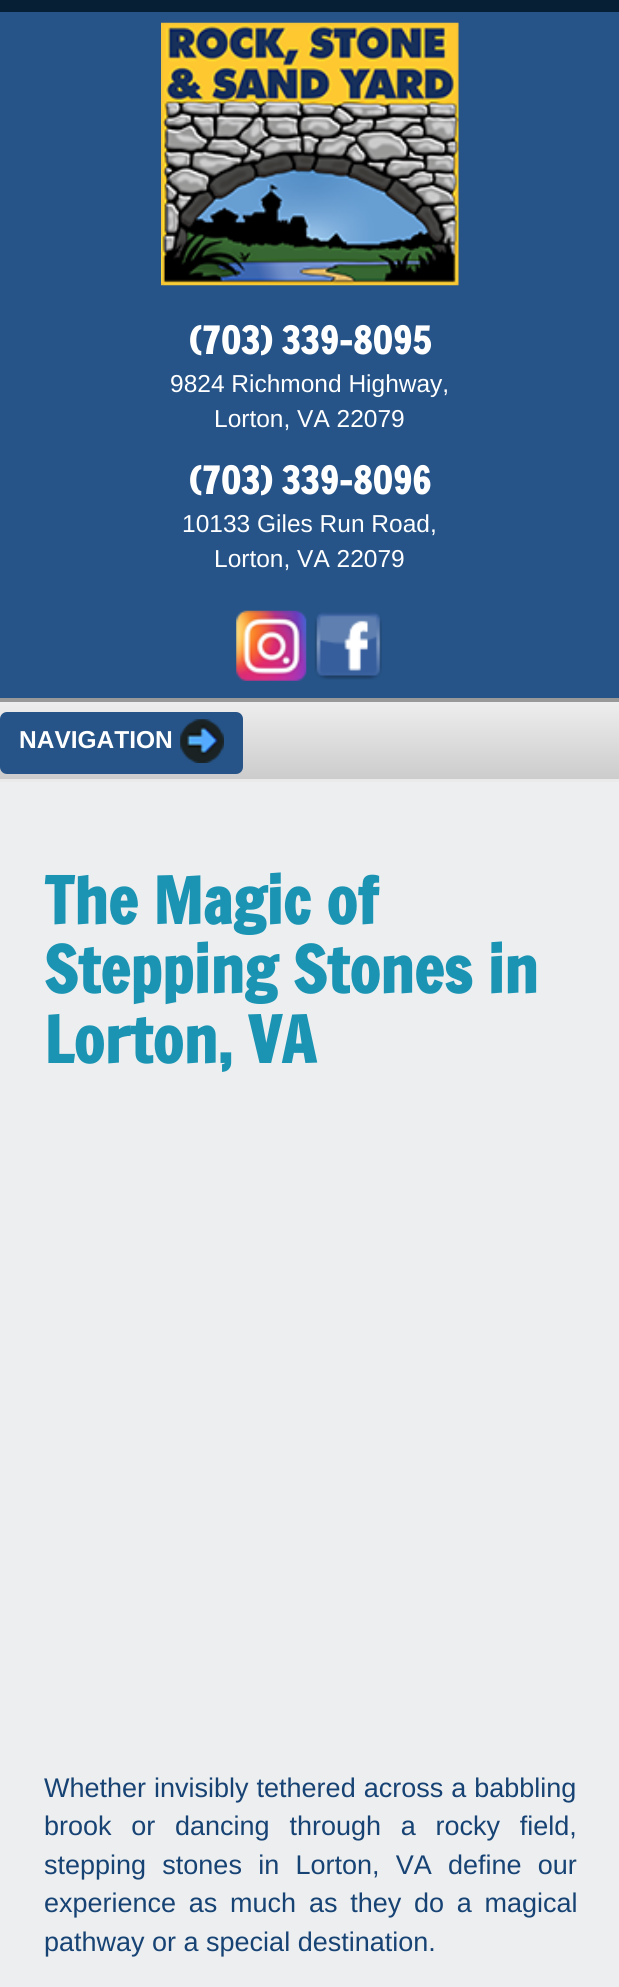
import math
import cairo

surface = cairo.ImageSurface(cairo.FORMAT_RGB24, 619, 1987)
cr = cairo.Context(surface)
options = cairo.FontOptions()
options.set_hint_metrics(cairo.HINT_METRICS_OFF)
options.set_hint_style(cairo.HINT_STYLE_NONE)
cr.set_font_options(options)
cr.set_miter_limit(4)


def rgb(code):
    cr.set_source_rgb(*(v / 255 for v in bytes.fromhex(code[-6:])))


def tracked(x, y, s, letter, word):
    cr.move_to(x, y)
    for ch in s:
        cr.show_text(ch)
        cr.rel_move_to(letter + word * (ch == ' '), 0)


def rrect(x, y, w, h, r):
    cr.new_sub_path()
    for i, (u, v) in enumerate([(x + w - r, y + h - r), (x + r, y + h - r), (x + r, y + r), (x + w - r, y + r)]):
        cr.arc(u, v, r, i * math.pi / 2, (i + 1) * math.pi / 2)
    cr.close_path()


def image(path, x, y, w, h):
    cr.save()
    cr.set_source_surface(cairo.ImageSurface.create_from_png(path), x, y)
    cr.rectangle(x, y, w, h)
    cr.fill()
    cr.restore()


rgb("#eceef0")
cr.paint()
rgb("#265488")
cr.rectangle(0, 12, 619, 686)
cr.fill()
rgb("#061f34")
cr.rectangle(0, 0, 619, 12)
cr.fill()
image("img/1.png", 161, 22, 298, 264)
image("img/2.png", 236, 610, 71, 71)
image("img/3.png", 314, 612, 68, 68)
gradient = cairo.LinearGradient(310, 702, 310, 779)
gradient.add_color_stop_rgba(0, 0.933, 0.933, 0.933, 1)
gradient.add_color_stop_rgba(1, 0.8, 0.8, 0.8, 1)
cr.set_source(gradient)
cr.rectangle(0, 703, 619, 76)
cr.fill()
rgb("#999999")
cr.rectangle(0, 698, 619, 4)
cr.fill()
rgb("#eaeaea")
cr.rectangle(0, 779, 619, 3)
cr.fill()
rgb("#265488")
rrect(0, 712, 243, 62, 7)
cr.fill()
image("img/4.png", 180, 719, 44, 44)
cr.select_font_face("Francois One", cairo.FONT_SLANT_NORMAL, cairo.FONT_WEIGHT_BOLD)
cr.set_font_size(36.75)
rgb("#ffffff")
cr.move_to(189, 354)
cr.show_text("(703) 339-8095")
cr.select_font_face("Liberation Sans")
cr.set_font_size(24.5)
cr.move_to(170, 392)
cr.show_text("9824 Richmond Highway,")
cr.move_to(214, 427)
cr.show_text("Lorton, VA 22079")
cr.select_font_face("Francois One", cairo.FONT_SLANT_NORMAL, cairo.FONT_WEIGHT_BOLD)
cr.set_font_size(36.75)
cr.move_to(189, 494)
cr.show_text("(703) 339-8096")
cr.select_font_face("Liberation Sans")
cr.set_font_size(24.5)
cr.move_to(182, 532)
cr.show_text("10133 Giles Run Road,")
cr.move_to(214, 567)
cr.show_text("Lorton, VA 22079")
cr.select_font_face("Liberation Sans", cairo.FONT_SLANT_NORMAL, cairo.FONT_WEIGHT_BOLD)
cr.move_to(19, 748)
cr.show_text("NAVIGATION")
cr.select_font_face("Francois One", cairo.FONT_SLANT_NORMAL, cairo.FONT_WEIGHT_BOLD)
cr.set_font_size(63)
rgb("#1b94b3")
for x, y, s in [
    (44, 924, "The Magic of"),
    (44, 993, "Stepping Stones in"),
    (44, 1063, "Lorton, VA"),
]:
    cr.move_to(x, y)
    cr.show_text(s)
cr.select_font_face("Liberation Sans")
cr.set_font_size(27)
rgb("#174374")
tracked(44, 1797, "Whether invisibly tethered across a babbling", 0, 0.5)
tracked(44, 1835, "brook or dancing through a rocky field,", 0, 12.25)
tracked(44, 1874, "stepping stones in Lorton, VA define our", 0, 8.75)
tracked(44, 1912, "experience as much as they do a magical", 0, 5.25)
cr.move_to(44, 1951)
cr.show_text("pathway or a special destination.")
surface.write_to_png("page.png")
